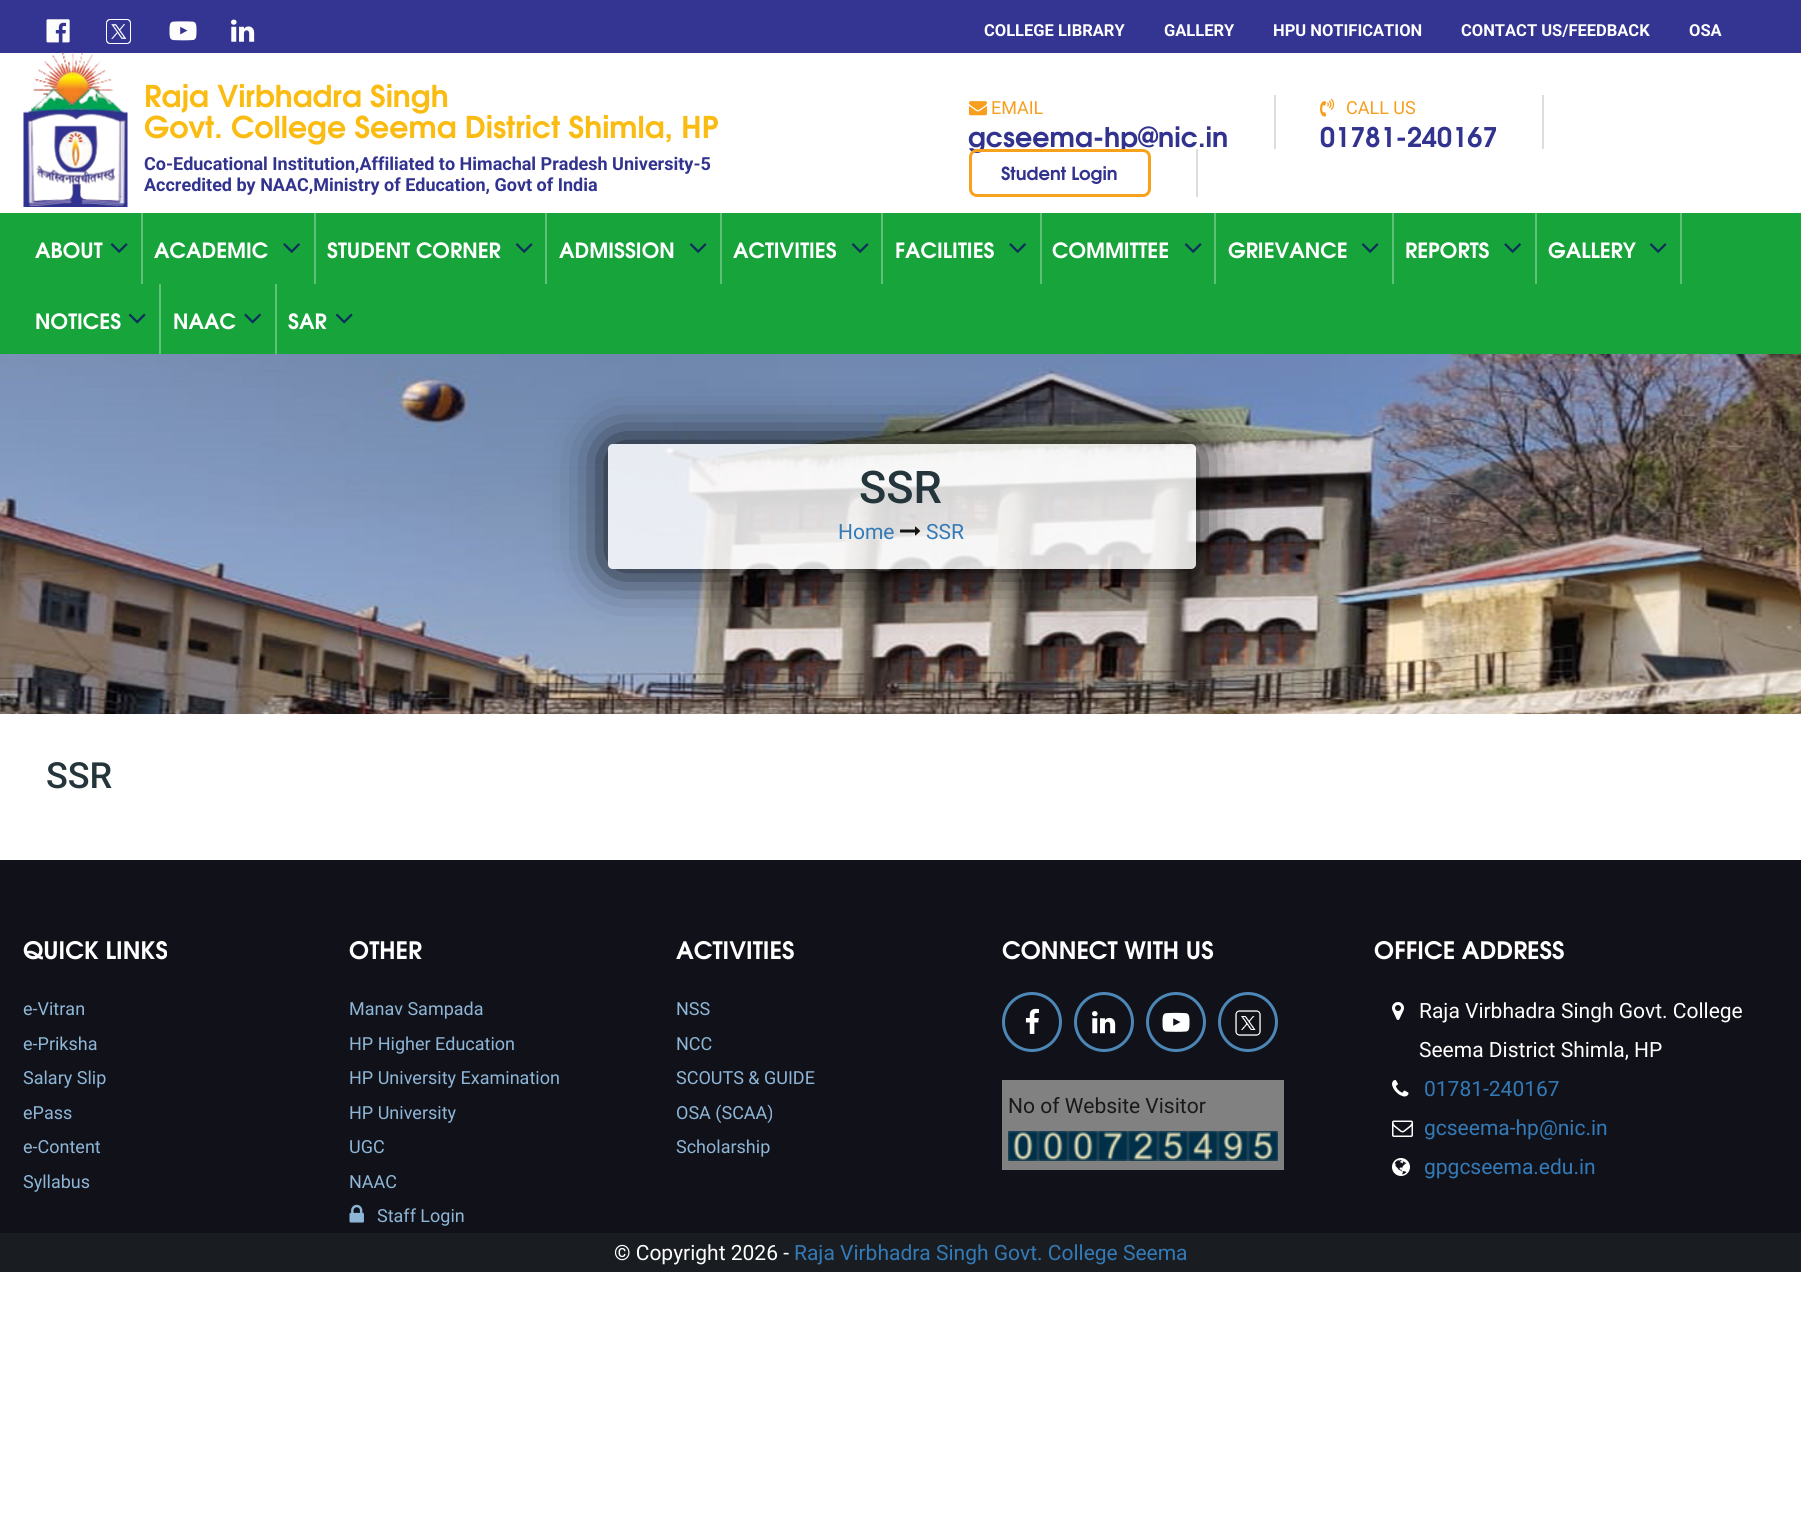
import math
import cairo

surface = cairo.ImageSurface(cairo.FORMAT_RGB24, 1801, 1536)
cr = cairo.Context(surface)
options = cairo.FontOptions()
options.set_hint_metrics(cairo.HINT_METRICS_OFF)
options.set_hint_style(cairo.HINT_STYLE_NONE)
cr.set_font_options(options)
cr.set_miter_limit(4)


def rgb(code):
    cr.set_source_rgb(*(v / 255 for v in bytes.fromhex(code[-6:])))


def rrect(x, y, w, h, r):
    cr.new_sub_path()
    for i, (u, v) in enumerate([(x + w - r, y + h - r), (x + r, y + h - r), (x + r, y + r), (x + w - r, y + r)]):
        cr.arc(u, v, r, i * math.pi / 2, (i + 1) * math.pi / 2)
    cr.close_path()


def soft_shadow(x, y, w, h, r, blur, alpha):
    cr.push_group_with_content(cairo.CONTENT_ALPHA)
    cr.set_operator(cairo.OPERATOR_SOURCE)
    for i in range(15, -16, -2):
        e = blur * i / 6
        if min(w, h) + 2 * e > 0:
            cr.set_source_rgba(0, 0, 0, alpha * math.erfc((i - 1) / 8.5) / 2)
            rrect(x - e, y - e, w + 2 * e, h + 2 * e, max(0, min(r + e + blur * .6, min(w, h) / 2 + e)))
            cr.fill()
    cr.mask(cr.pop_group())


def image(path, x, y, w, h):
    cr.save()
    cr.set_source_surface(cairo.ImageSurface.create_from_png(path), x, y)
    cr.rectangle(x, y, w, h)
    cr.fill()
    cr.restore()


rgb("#ffffff")
cr.paint()
rgb("#343593")
cr.rectangle(0, 0, 1801, 53)
cr.fill()
image("img/1.png", 46, 19, 24, 24)
image("img/2.png", 106, 19, 25, 25)
image("img/3.png", 169, 21, 28, 20)
image("img/4.png", 231, 19, 24, 23)
image("img/5.png", 23, 52, 105, 155)
rgb("#dedddd")
cr.rectangle(1274, 95, 2, 54)
cr.fill()
image("img/6.png", 969, 101, 18, 15)
cr.rectangle(1542, 95, 2, 54)
cr.fill()
image("img/7.png", 1320, 98, 15, 19)
rgb("#17a43b")
cr.rectangle(0, 213, 1801, 141)
cr.fill()
rgb("#5fc078")
cr.rectangle(141, 213, 2, 71)
cr.fill()
image("img/8.png", 110, 243, 18, 10)
cr.rectangle(314, 213, 2, 71)
cr.fill()
image("img/9.png", 283, 243, 17, 10)
cr.rectangle(545, 213, 2, 71)
cr.fill()
image("img/8.png", 515, 243, 18, 10)
cr.rectangle(720, 213, 2, 71)
cr.fill()
image("img/8.png", 689, 243, 18, 10)
cr.rectangle(881, 213, 2, 71)
cr.fill()
image("img/8.png", 851, 243, 18, 10)
cr.rectangle(1040, 213, 2, 71)
cr.fill()
image("img/9.png", 1009, 243, 17, 10)
cr.rectangle(1214, 213, 2, 71)
cr.fill()
image("img/8.png", 1184, 243, 18, 10)
cr.rectangle(1392, 213, 2, 71)
cr.fill()
image("img/8.png", 1361, 243, 18, 10)
cr.rectangle(1535, 213, 2, 71)
cr.fill()
image("img/9.png", 1504, 243, 17, 10)
cr.rectangle(1680, 213, 2, 71)
cr.fill()
image("img/8.png", 1649, 243, 18, 10)
cr.rectangle(159, 284, 2, 70)
cr.fill()
image("img/10.png", 128, 313, 18, 11)
cr.rectangle(275, 284, 2, 70)
cr.fill()
image("img/11.png", 244, 313, 17, 11)
image("img/10.png", 335, 313, 18, 11)
image("img/12.png", 0, 354, 1801, 360)
cr.save()
cr.set_fill_rule(cairo.FILL_RULE_EVEN_ODD)
cr.new_path()
cr.move_to(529, 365)
cr.line_to(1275, 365)
cr.line_to(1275, 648)
cr.line_to(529, 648)
cr.close_path()
cr.move_to(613, 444)
cr.line_to(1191, 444)
cr.curve_to(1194, 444, 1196, 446, 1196, 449)
cr.line_to(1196, 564)
cr.curve_to(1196, 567, 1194, 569, 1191, 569)
cr.line_to(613, 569)
cr.curve_to(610, 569, 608, 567, 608, 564)
cr.line_to(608, 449)
cr.curve_to(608, 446, 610, 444, 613, 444)
cr.close_path()
cr.clip()
rgb("#000000")
soft_shadow(608, 444, 588, 125, 5, 26, 1)
cr.restore()
cr.set_source_rgba(1, 1, 1, 0.83)
rrect(608, 444, 588, 125, 5)
cr.fill()
image("img/13.png", 900, 526, 21, 10)
rgb("#11111a")
cr.rectangle(0, 860, 1801, 373)
cr.fill()
image("img/14.png", 349, 1204, 15, 19)
cr.arc(1032, 1022, 28.5, 0, 2 * math.pi)
rgb("#4d87b5")
cr.set_line_width(3)
cr.stroke()
image("img/15.png", 1025, 1008, 14, 26)
cr.arc(1104, 1022, 28.5, 0, 2 * math.pi)
cr.stroke()
image("img/16.png", 1092, 1011, 24, 23)
cr.arc(1176, 1022, 28.5, 0, 2 * math.pi)
cr.stroke()
image("img/17.png", 1162, 1012, 28, 20)
cr.arc(1248, 1022, 28.5, 0, 2 * math.pi)
cr.stroke()
image("img/18.png", 1235, 1010, 26, 26)
rgb("#818181")
cr.rectangle(1002, 1080, 282, 90)
cr.fill()
image("img/19.png", 1008, 1131, 270, 30)
image("img/20.png", 1392, 1002, 12, 18)
image("img/21.png", 1392, 1080, 17, 17)
image("img/22.png", 1392, 1120, 21, 17)
image("img/23.png", 1392, 1158, 18, 18)
rgb("#191d21")
cr.rectangle(0, 1233, 1801, 39)
cr.fill()
cr.select_font_face("Roboto", cairo.FONT_SLANT_NORMAL, cairo.FONT_WEIGHT_BOLD)
cr.set_font_size(16.5)
rgb("#ffffff")
for x, y, s in [
    (984, 36, "COLLEGE LIBRARY"),
    (1164, 36, "GALLERY"),
    (1273, 36, "HPU NOTIFICATION"),
    (1461, 36, "CONTACT US/FEEDBACK"),
    (1689, 36, "OSA"),
]:
    cr.move_to(x, y)
    cr.show_text(s)
cr.select_font_face("TeX Gyre Adventor", cairo.FONT_SLANT_NORMAL, cairo.FONT_WEIGHT_BOLD)
cr.set_font_size(30)
rgb("#fabc12")
cr.move_to(144, 107)
cr.show_text("Raja Virbhadra Singh")
cr.move_to(144, 138)
cr.show_text("Govt. College Seema District Shimla, HP")
cr.select_font_face("Roboto", cairo.FONT_SLANT_NORMAL, cairo.FONT_WEIGHT_BOLD)
cr.set_font_size(18)
rgb("#32328f")
cr.move_to(144, 170)
cr.show_text("Co-Educational Institution,Affiliated to Himachal Pradesh University-5")
cr.move_to(144, 191)
cr.show_text("Accredited by NAAC,Ministry of Education, Govt of India")
cr.select_font_face("Roboto")
rgb("#f79e1e")
cr.move_to(991, 114)
cr.show_text("EMAIL")
cr.select_font_face("TeX Gyre Adventor", cairo.FONT_SLANT_NORMAL, cairo.FONT_WEIGHT_BOLD)
cr.set_font_size(27)
rgb("#32328f")
cr.move_to(968, 147)
cr.show_text("gcseema-hp@nic.in")
cr.select_font_face("Roboto")
cr.set_font_size(18)
rgb("#f79e1e")
cr.move_to(1346, 114)
cr.show_text("CALL US")
cr.select_font_face("TeX Gyre Adventor", cairo.FONT_SLANT_NORMAL, cairo.FONT_WEIGHT_BOLD)
cr.set_font_size(27)
rgb("#32328f")
cr.move_to(1320, 147)
cr.show_text("01781-240167")
rgb("#dedddd")
cr.rectangle(1196, 149, 2, 48)
cr.fill()
rrect(970.5, 150.5, 179, 45, 6.5)
rgb("#f8a11d")
cr.stroke()
cr.set_font_size(18)
rgb("#32328f")
cr.move_to(1001, 180)
cr.show_text("Student Login")
cr.set_font_size(21)
rgb("#ffffff")
for x, y, s in [
    (35, 258, "ABOUT"),
    (154, 258, "ACADEMIC"),
    (327, 258, "STUDENT CORNER"),
    (559, 258, "ADMISSION"),
    (733, 258, "ACTIVITIES"),
    (895, 258, "FACILITIES"),
    (1052, 258, "COMMITTEE"),
    (1228, 258, "GRIEVANCE"),
    (1405, 258, "REPORTS"),
    (1548, 258, "GALLERY"),
    (35, 329, "NOTICES"),
    (173, 329, "NAAC"),
    (288, 329, "SAR"),
]:
    cr.move_to(x, y)
    cr.show_text(s)
cr.select_font_face("Roboto Medium")
cr.set_font_size(45)
rgb("#24353b")
cr.move_to(859, 503)
cr.show_text("SSR")
cr.select_font_face("Roboto")
cr.set_font_size(21)
rgb("#337ab7")
cr.move_to(838, 539)
cr.show_text("Home")
cr.move_to(926, 539)
cr.show_text("SSR")
cr.select_font_face("Roboto Medium")
cr.set_font_size(36)
rgb("#24353b")
cr.move_to(46, 788)
cr.show_text("SSR")
cr.select_font_face("TeX Gyre Adventor", cairo.FONT_SLANT_NORMAL, cairo.FONT_WEIGHT_BOLD)
cr.set_font_size(24)
rgb("#ffffff")
cr.move_to(23, 959)
cr.show_text("QUICK LINKS")
cr.select_font_face("Roboto")
cr.set_font_size(18)
rgb("#8eb6d6")
for x, y, s in [
    (23, 1015, "e-Vitran"),
    (23, 1050, "e-Priksha"),
    (23, 1084, "Salary Slip"),
    (23, 1119, "ePass"),
    (23, 1153, "e-Content"),
    (23, 1188, "Syllabus"),
]:
    cr.move_to(x, y)
    cr.show_text(s)
cr.select_font_face("TeX Gyre Adventor", cairo.FONT_SLANT_NORMAL, cairo.FONT_WEIGHT_BOLD)
cr.set_font_size(24)
rgb("#ffffff")
cr.move_to(349, 959)
cr.show_text("OTHER")
cr.select_font_face("Roboto")
cr.set_font_size(18)
rgb("#8eb6d6")
for x, y, s in [
    (349, 1015, "Manav Sampada"),
    (349, 1050, "HP Higher Education"),
    (349, 1084, "HP University Examination"),
    (349, 1119, "HP University"),
    (349, 1153, "UGC"),
    (349, 1188, "NAAC"),
    (377, 1222, "Staff Login"),
]:
    cr.move_to(x, y)
    cr.show_text(s)
cr.select_font_face("TeX Gyre Adventor", cairo.FONT_SLANT_NORMAL, cairo.FONT_WEIGHT_BOLD)
cr.set_font_size(24)
rgb("#ffffff")
cr.move_to(676, 959)
cr.show_text("ACTIVITIES")
cr.select_font_face("Roboto")
cr.set_font_size(18)
rgb("#8eb6d6")
for x, y, s in [
    (676, 1015, "NSS"),
    (676, 1050, "NCC"),
    (676, 1084, "SCOUTS & GUIDE"),
    (676, 1119, "OSA (SCAA)"),
    (676, 1153, "Scholarship"),
]:
    cr.move_to(x, y)
    cr.show_text(s)
cr.select_font_face("TeX Gyre Adventor", cairo.FONT_SLANT_NORMAL, cairo.FONT_WEIGHT_BOLD)
cr.set_font_size(24)
rgb("#ffffff")
cr.move_to(1002, 959)
cr.show_text("CONNECT WITH US")
cr.select_font_face("Roboto")
cr.set_font_size(21)
rgb("#1a1818")
cr.move_to(1008, 1113)
cr.show_text("No of Website Visitor")
cr.select_font_face("TeX Gyre Adventor", cairo.FONT_SLANT_NORMAL, cairo.FONT_WEIGHT_BOLD)
cr.set_font_size(24)
rgb("#ffffff")
cr.move_to(1374, 959)
cr.show_text("OFFICE ADDRESS")
cr.select_font_face("Roboto")
cr.set_font_size(21)
cr.move_to(1419, 1018)
cr.show_text("Raja Virbhadra Singh Govt. College")
cr.move_to(1419, 1057)
cr.show_text("Seema District Shimla, HP")
rgb("#337ab7")
for x, y, s in [
    (1424, 1096, "01781-240167"),
    (1424, 1135, "gcseema-hp@nic.in"),
    (1424, 1174, "gpgcseema.edu.in"),
]:
    cr.move_to(x, y)
    cr.show_text(s)
rgb("#ffffff")
cr.move_to(614, 1260)
cr.show_text("© Copyright 2026 -")
rgb("#337ab7")
cr.move_to(794, 1260)
cr.show_text("Raja Virbhadra Singh Govt. College Seema")
surface.write_to_png("page.png")
